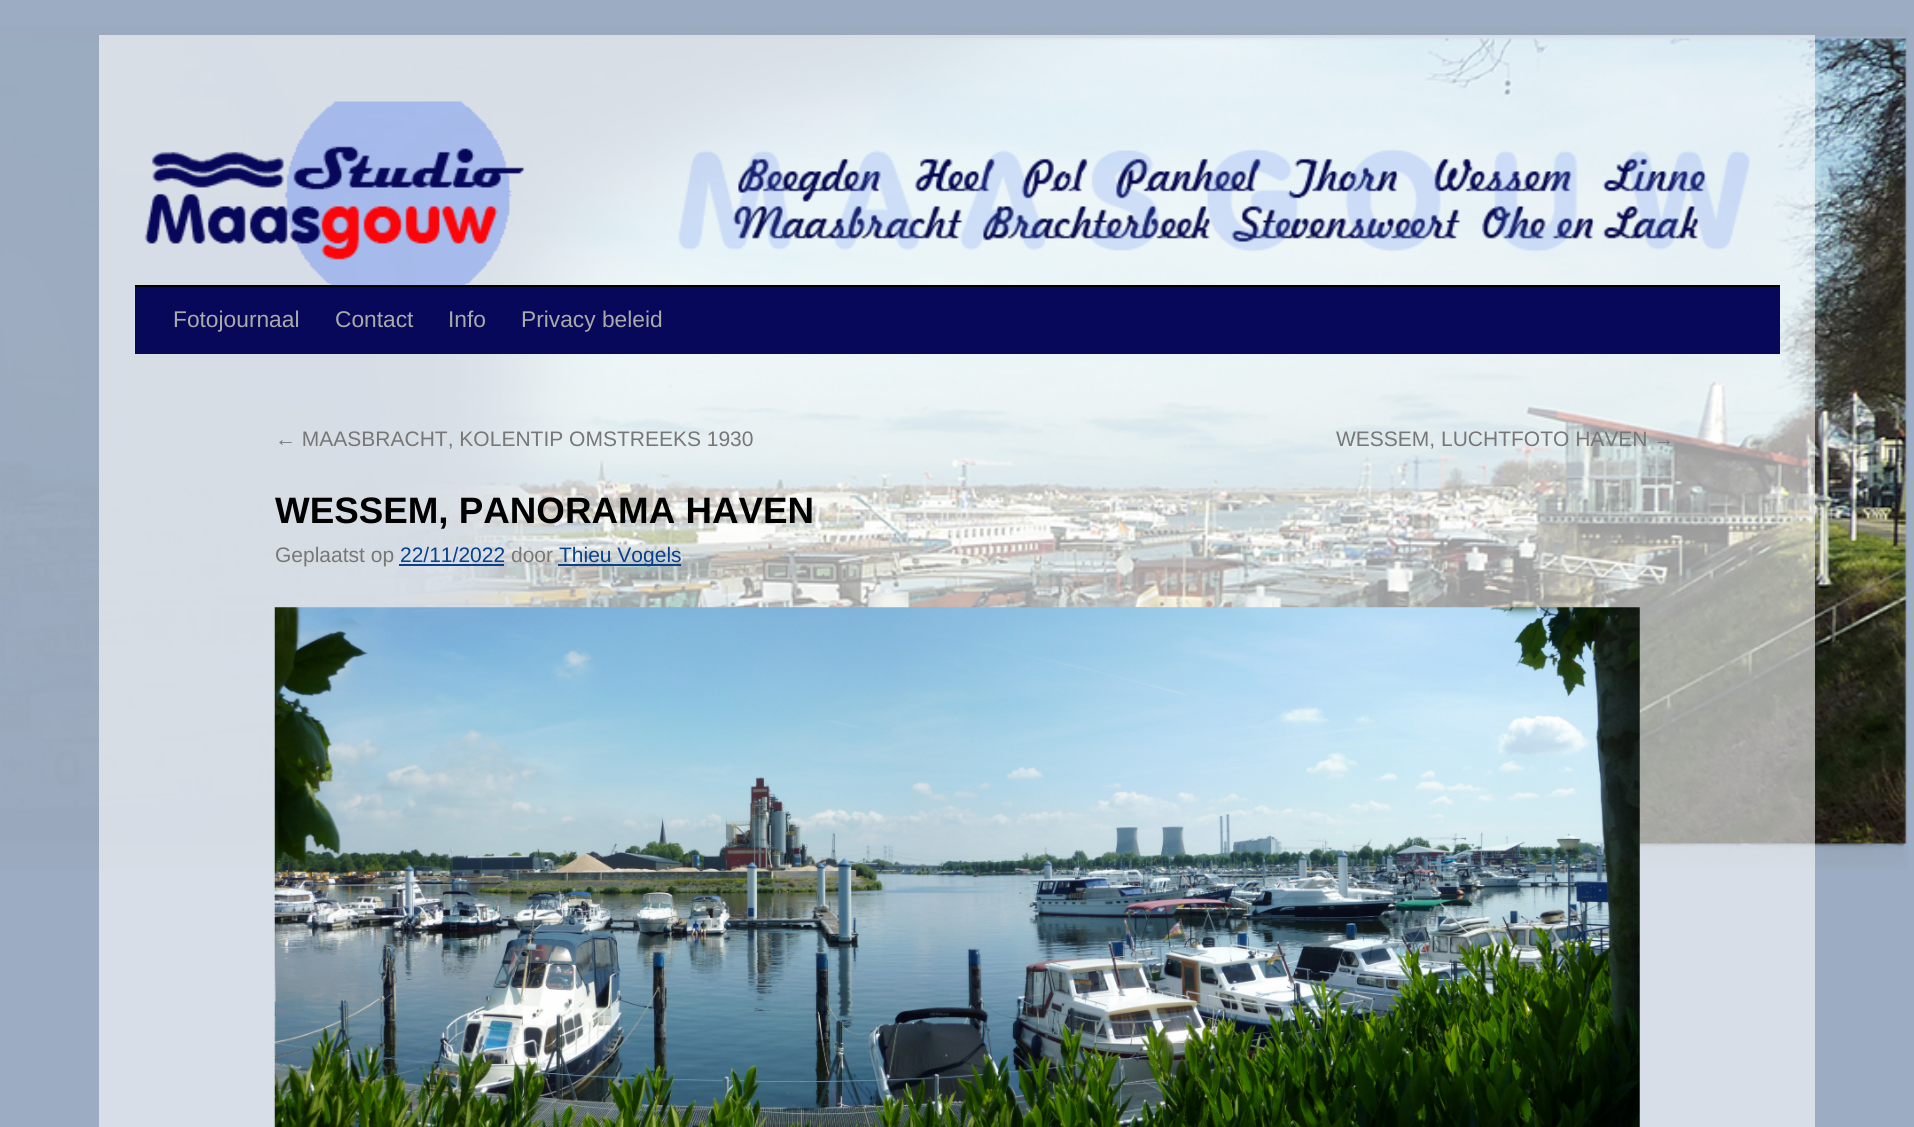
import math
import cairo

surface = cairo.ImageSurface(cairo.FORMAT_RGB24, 1914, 1127)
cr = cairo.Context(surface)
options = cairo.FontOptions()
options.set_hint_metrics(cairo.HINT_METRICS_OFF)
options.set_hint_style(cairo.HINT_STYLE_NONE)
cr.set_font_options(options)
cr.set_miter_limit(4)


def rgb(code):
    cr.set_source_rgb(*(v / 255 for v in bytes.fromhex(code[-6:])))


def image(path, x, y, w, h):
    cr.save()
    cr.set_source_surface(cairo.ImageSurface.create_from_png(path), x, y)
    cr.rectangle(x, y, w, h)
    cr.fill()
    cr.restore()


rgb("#9cacc3")
cr.paint()
image("img/1.png", 0, 27, 1908, 842)
cr.set_source_rgba(1, 1, 1, 0.6)
cr.rectangle(99, 35, 1716, 1092)
cr.fill()
rgb("#000000")
cr.rectangle(135, 285, 1645, 2)
cr.fill()
image("img/2.png", 144, 101, 1606, 185)
for x, y, w, h, color in [
    (135, 287, 1645, 67, "#08085a"),
    (399, 564, 105, 2, "#07408e"),
    (558, 564, 123, 2, "#07408e"),
]:
    rgb(color)
    cr.rectangle(x, y, w, h)
    cr.fill()
image("img/3.png", 274, 607, 1366, 520)
cr.select_font_face("Liberation Sans")
cr.set_font_size(22.75)
rgb("#aaaaaa")
for x, y, s in [
    (173, 327, "Fotojournaal"),
    (335, 327, "Contact"),
    (448, 327, "Info"),
    (521, 327, "Privacy beleid"),
]:
    cr.move_to(x, y)
    cr.show_text(s)
cr.set_font_size(21)
rgb("#777777")
cr.move_to(275, 446)
cr.show_text("← MAASBRACHT, KOLENTIP OMSTREEKS 1930")
cr.move_to(1336, 446)
cr.show_text("WESSEM, LUCHTFOTO HAVEN →")
cr.select_font_face("Liberation Sans", cairo.FONT_SLANT_NORMAL, cairo.FONT_WEIGHT_BOLD)
cr.set_font_size(36.75)
rgb("#000000")
cr.move_to(275, 523)
cr.show_text("WESSEM, PANORAMA HAVEN")
cr.select_font_face("Liberation Sans")
cr.set_font_size(21)
rgb("#777777")
cr.move_to(275, 562)
cr.show_text("Geplaatst op")
rgb("#07408e")
cr.move_to(400, 562)
cr.show_text("22/11/2022")
rgb("#777777")
cr.move_to(511, 562)
cr.show_text("door")
rgb("#07408e")
cr.move_to(559, 562)
cr.show_text("Thieu Vogels")
surface.write_to_png("page.png")
